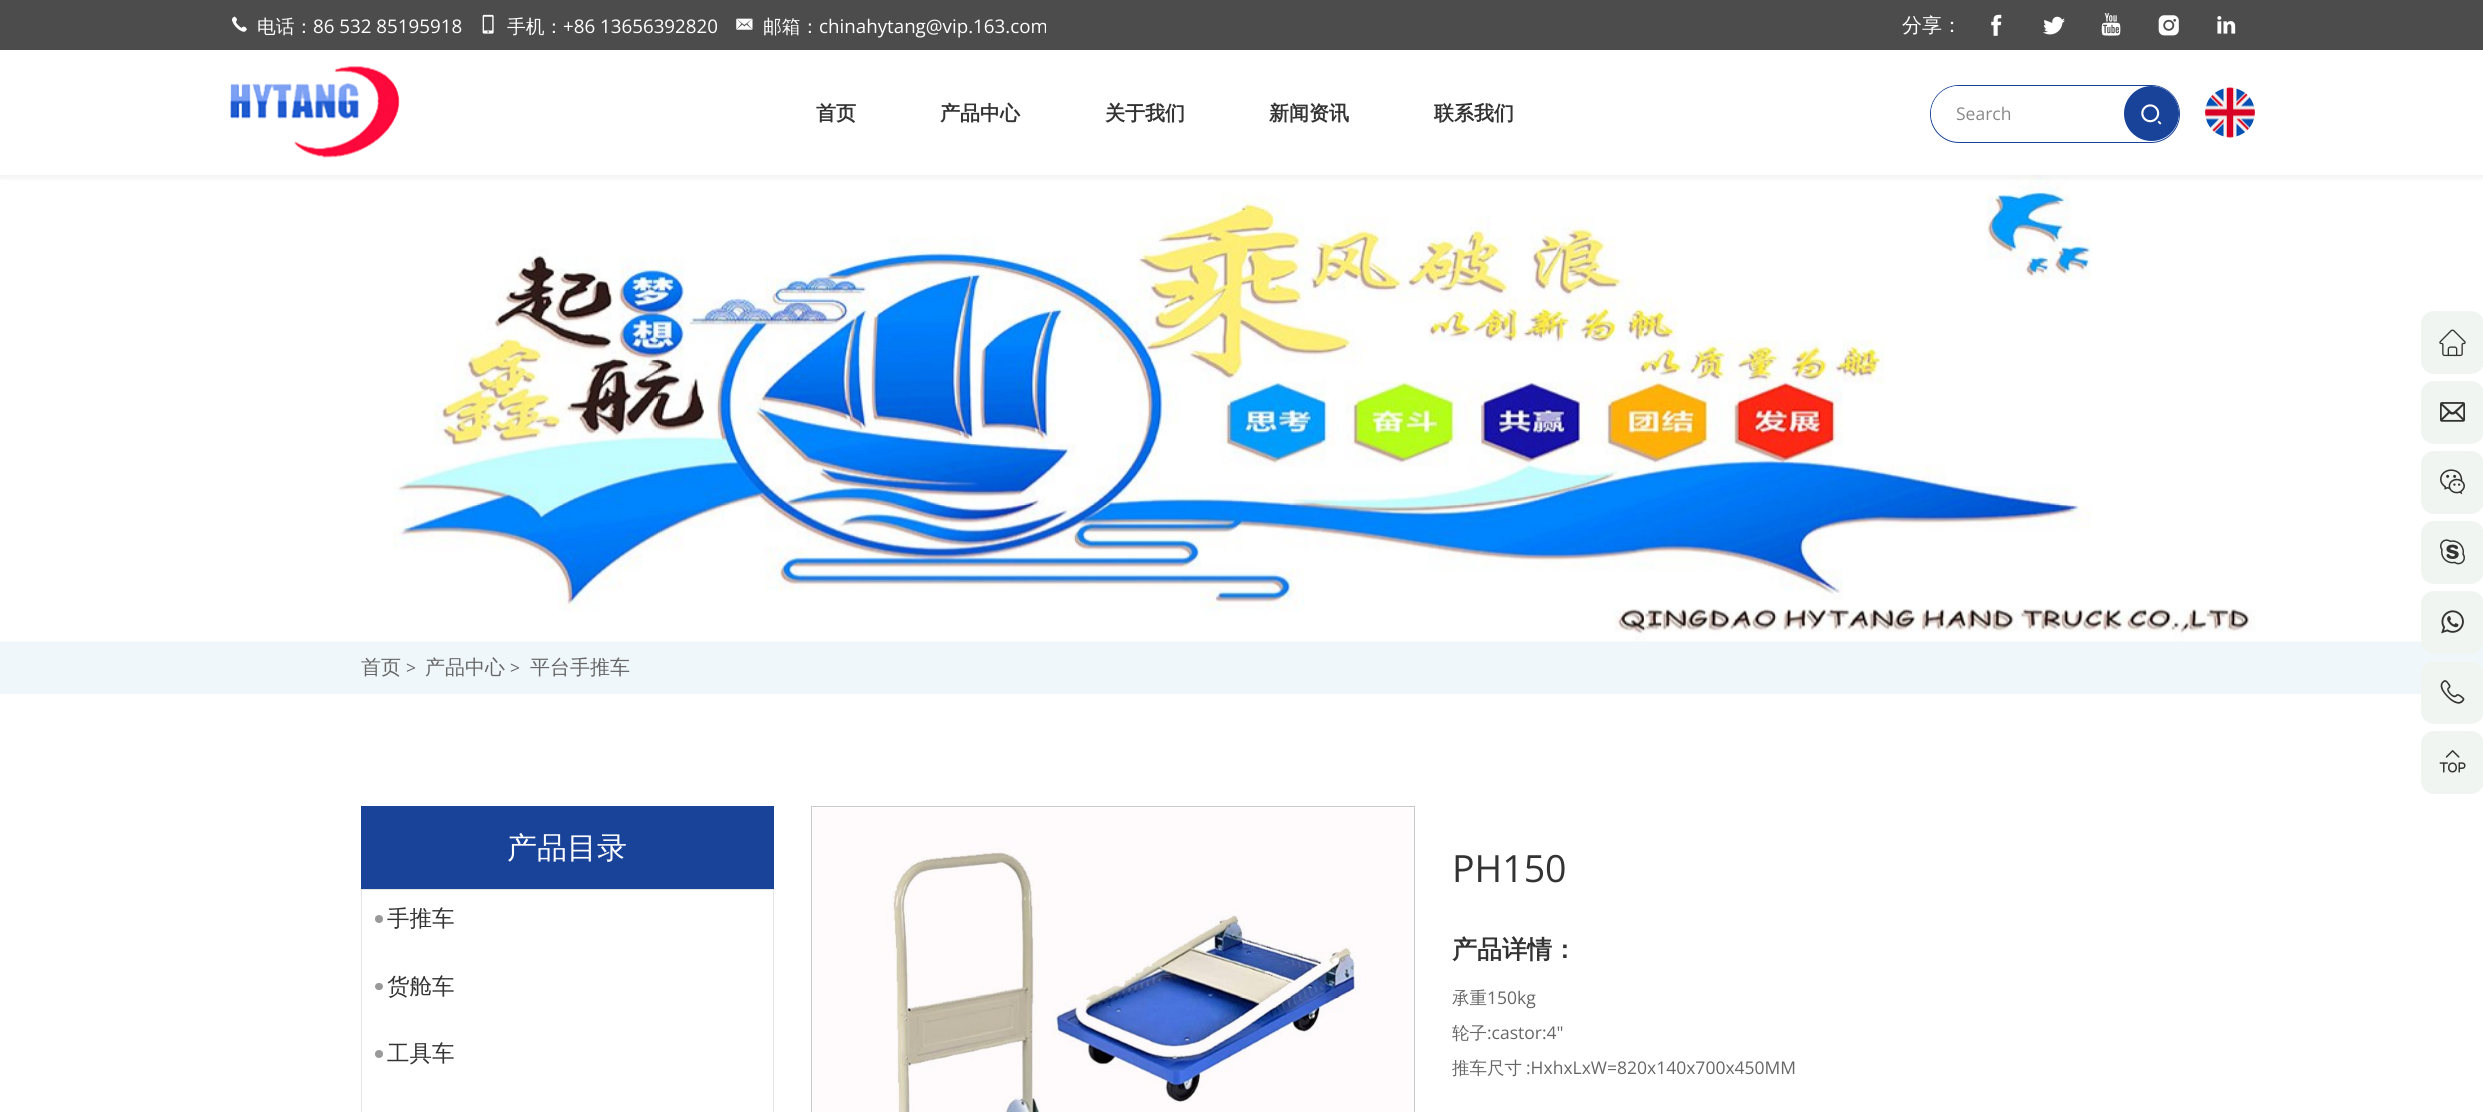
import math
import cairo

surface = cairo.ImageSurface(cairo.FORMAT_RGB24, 2483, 1112)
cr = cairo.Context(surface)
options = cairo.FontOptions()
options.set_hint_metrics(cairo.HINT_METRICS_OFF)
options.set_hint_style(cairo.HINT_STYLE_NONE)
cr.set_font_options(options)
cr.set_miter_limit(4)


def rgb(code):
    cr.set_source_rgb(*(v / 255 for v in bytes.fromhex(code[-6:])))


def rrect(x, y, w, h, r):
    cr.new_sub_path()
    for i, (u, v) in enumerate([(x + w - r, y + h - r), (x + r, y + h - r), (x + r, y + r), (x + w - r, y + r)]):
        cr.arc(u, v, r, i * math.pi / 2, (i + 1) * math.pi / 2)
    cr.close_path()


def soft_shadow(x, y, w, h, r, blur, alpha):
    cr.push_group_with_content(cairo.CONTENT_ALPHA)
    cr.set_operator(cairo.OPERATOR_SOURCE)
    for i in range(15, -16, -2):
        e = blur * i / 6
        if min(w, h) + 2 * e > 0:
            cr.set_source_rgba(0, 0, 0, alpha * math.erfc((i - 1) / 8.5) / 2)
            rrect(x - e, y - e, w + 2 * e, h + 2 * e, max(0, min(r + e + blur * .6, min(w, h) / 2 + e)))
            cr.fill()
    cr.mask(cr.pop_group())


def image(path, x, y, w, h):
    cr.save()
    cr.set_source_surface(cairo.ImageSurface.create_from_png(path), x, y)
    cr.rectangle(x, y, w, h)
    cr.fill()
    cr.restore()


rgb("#ffffff")
cr.paint()
rgb("#f0f7fa")
cr.rectangle(0, 641, 2483, 53)
cr.fill()
image("img/12.png", 0, 175, 2483, 467)
cr.save()
cr.rectangle(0, 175, 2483, 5)
cr.clip()
rgb("#000000")
soft_shadow(0, 0, 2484, 175, 0, 6, 0.1)
cr.restore()
rgb("#4c4c4c")
cr.rectangle(0, 0, 2483, 50)
cr.fill()
image("img/1.png", 232, 16, 15, 16)
image("img/2.png", 482, 14, 12, 20)
image("img/3.png", 736, 18, 17, 12)
image("img/4.png", 1991, 14, 11, 22)
image("img/5.png", 2043, 16, 22, 19)
image("img/6.png", 2101, 13, 20, 23)
image("img/7.png", 2158, 15, 21, 21)
image("img/8.png", 2217, 16, 19, 18)
image("img/9.png", 230, 66, 170, 92)
rrect(1930.5, 85.5, 249, 57, 28.5)
rgb("#194399")
cr.set_line_width(1)
cr.stroke()
rgb("#ffffff")
rrect(1931, 86, 248, 55, 27.5)
cr.fill()
rgb("#194399")
cr.arc(2151.5, 113.5, 27.5, 0, 2 * math.pi)
cr.fill()
image("img/10.png", 2141, 104, 21, 21)
image("img/11.png", 2204, 87, 52, 51)
rgb("#f0f5f2")
rrect(2421, 311, 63, 63, 13)
cr.fill()
image("img/13.png", 2439, 329, 27, 28)
rrect(2421, 381, 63, 63, 13)
cr.fill()
image("img/14.png", 2440, 402, 25, 20)
rrect(2421, 451, 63, 63, 13)
cr.fill()
image("img/15.png", 2440, 469, 25, 26)
rrect(2421, 521, 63, 63, 13)
cr.fill()
image("img/16.png", 2440, 539, 25, 26)
rrect(2421, 591, 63, 63, 13)
cr.fill()
image("img/17.png", 2441, 610, 23, 24)
rrect(2421, 661, 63, 63, 13)
cr.fill()
image("img/18.png", 2440, 680, 25, 24)
rrect(2421, 731, 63, 63, 13)
cr.fill()
image("img/19.png", 2439, 750, 27, 23)
rgb("#194399")
cr.rectangle(361, 806, 413, 83)
cr.fill()
cr.rectangle(361.5, 889.5, 412, 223)
rgb("#e5e5e5")
cr.stroke()
rgb("#999999")
cr.arc(379, 919, 4, 0, 2 * math.pi)
cr.fill()
rrect(375, 983, 8, 7, 3.5)
cr.fill()
cr.arc(379, 1054, 4, 0, 2 * math.pi)
cr.fill()
cr.rectangle(811.5, 806.5, 603, 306)
rgb("#c9c9c9")
cr.stroke()
image("img/20.png", 813, 808, 601, 304)
cr.select_font_face("WenQuanYi Zen Hei Medium")
cr.set_font_size(18.75)
rgb("#ffffff")
cr.move_to(257, 33)
cr.show_text("电话：")
cr.select_font_face("Open Sans")
cr.move_to(313, 33)
cr.show_text("86 532 85195918")
cr.select_font_face("WenQuanYi Zen Hei Medium")
cr.move_to(507, 33)
cr.show_text("手机：")
cr.select_font_face("Open Sans")
cr.move_to(563, 33)
cr.show_text("+86 13656392820")
cr.select_font_face("WenQuanYi Zen Hei Medium")
cr.move_to(763, 33)
cr.show_text("邮箱：")
cr.select_font_face("Open Sans")
cr.move_to(819, 33)
cr.show_text("chinahytang@vip.163.com")
cr.select_font_face("WenQuanYi Zen Hei Medium")
cr.set_font_size(20)
cr.move_to(1902, 32)
cr.show_text("分享：")
cr.select_font_face("WenQuanYi Zen Hei", cairo.FONT_SLANT_NORMAL, cairo.FONT_WEIGHT_BOLD)
rgb("#333333")
for x, y, s in [
    (816, 120, "首页"),
    (940, 120, "产品中心"),
    (1105, 120, "关于我们"),
    (1269, 120, "新闻资讯"),
    (1434, 120, "联系我们"),
]:
    cr.move_to(x, y)
    cr.show_text(s)
cr.select_font_face("Open Sans")
cr.set_font_size(17.5)
rgb("#888888")
cr.move_to(1956, 120)
cr.show_text("Search")
cr.select_font_face("WenQuanYi Zen Hei Medium")
cr.set_font_size(20)
rgb("#666666")
cr.move_to(361, 674)
cr.show_text("首页")
cr.select_font_face("Open Sans")
cr.set_font_size(17.5)
cr.move_to(406, 674)
cr.show_text(">")
cr.select_font_face("WenQuanYi Zen Hei Medium")
cr.set_font_size(20)
cr.move_to(425, 674)
cr.show_text("产品中心")
cr.select_font_face("Open Sans")
cr.set_font_size(17.5)
cr.move_to(510, 674)
cr.show_text(">")
cr.select_font_face("WenQuanYi Zen Hei Medium")
cr.set_font_size(20)
cr.move_to(530, 674)
cr.show_text("平台手推车")
cr.set_font_size(30)
rgb("#ffffff")
cr.move_to(507, 858)
cr.show_text("产品目录")
cr.set_font_size(22.5)
rgb("#333333")
for x, y, s in [
    (387, 926, "手推车"),
    (387, 994, "货舱车"),
    (387, 1061, "工具车"),
]:
    cr.move_to(x, y)
    cr.show_text(s)
cr.select_font_face("Open Sans")
cr.set_font_size(37.5)
cr.move_to(1452, 882)
cr.show_text("PH150")
cr.select_font_face("WenQuanYi Zen Hei", cairo.FONT_SLANT_NORMAL, cairo.FONT_WEIGHT_BOLD)
cr.set_font_size(25)
cr.move_to(1452, 958)
cr.show_text("产品详情：")
cr.select_font_face("WenQuanYi Zen Hei Medium")
cr.set_font_size(17.5)
rgb("#666666")
cr.move_to(1452, 1004)
cr.show_text("承重")
cr.select_font_face("Open Sans")
cr.move_to(1487, 1004)
cr.show_text("150kg")
cr.select_font_face("WenQuanYi Zen Hei Medium")
cr.move_to(1452, 1039)
cr.show_text("轮子")
cr.select_font_face("Open Sans")
cr.move_to(1487, 1039)
cr.show_text(":castor:4\"")
cr.select_font_face("WenQuanYi Zen Hei Medium")
cr.move_to(1452, 1074)
cr.show_text("推车尺寸")
cr.select_font_face("Open Sans")
cr.move_to(1526, 1074)
cr.show_text(":HxhxLxW=820x140x700x450MM")
surface.write_to_png("page.png")
